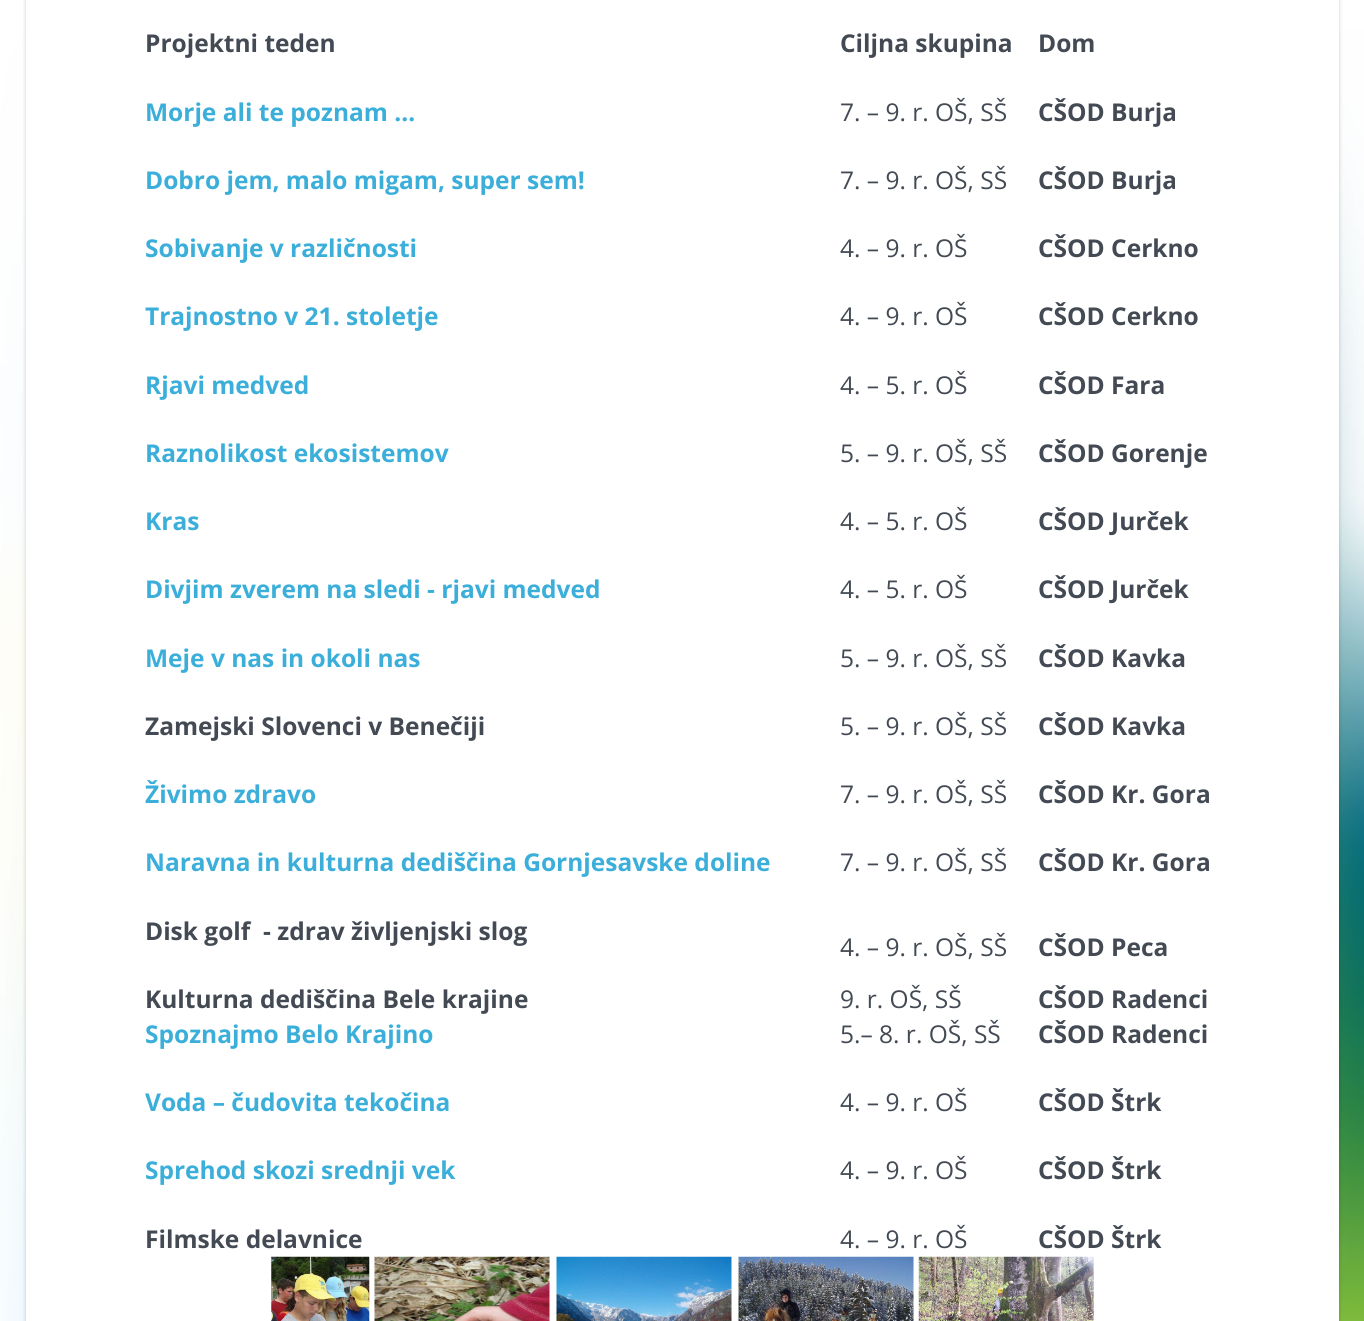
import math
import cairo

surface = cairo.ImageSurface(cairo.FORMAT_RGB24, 1364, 1321)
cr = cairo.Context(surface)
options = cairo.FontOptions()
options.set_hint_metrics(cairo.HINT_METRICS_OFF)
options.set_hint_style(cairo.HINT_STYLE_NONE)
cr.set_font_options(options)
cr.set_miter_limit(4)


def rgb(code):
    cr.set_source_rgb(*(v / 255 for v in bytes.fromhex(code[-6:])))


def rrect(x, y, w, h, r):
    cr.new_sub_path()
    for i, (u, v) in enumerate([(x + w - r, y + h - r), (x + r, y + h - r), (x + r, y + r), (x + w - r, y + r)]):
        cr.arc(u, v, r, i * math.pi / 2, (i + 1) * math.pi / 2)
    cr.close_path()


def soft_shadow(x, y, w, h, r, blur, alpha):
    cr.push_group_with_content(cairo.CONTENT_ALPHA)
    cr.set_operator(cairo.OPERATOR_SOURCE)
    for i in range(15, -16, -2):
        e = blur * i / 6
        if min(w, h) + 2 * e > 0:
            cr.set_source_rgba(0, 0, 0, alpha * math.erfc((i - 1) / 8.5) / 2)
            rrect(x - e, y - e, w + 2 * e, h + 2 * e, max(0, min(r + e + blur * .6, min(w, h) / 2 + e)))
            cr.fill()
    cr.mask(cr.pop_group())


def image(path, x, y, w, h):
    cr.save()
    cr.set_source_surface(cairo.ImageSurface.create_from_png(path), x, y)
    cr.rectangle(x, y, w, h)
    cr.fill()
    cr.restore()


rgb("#ffffff")
cr.paint()
image("img/1.png", 0, 0, 1364, 1321)
rgb("#000000")
soft_shadow(26, -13, 1313, 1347, 7, 2, 0.2)
rgb("#ffffff")
cr.rectangle(26, 0, 1313, 1321)
cr.fill()
image("img/2.png", 271, 1256, 99, 65)
image("img/3.png", 374, 1256, 176, 65)
image("img/4.png", 556, 1256, 176, 65)
image("img/5.png", 738, 1256, 176, 65)
image("img/6.png", 918, 1256, 176, 65)
cr.select_font_face("Open Sans", cairo.FONT_SLANT_NORMAL, cairo.FONT_WEIGHT_BOLD)
cr.set_font_size(24.5)
rgb("#434a54")
for x, y, s in [
    (145, 52, "Projektni teden"),
    (840, 52, "Ciljna skupina"),
    (1038, 52, "Dom"),
]:
    cr.move_to(x, y)
    cr.show_text(s)
rgb("#3bafda")
cr.move_to(145, 121)
cr.show_text("Morje ali te poznam …")
cr.select_font_face("Open Sans")
rgb("#434a54")
cr.move_to(840, 121)
cr.show_text("7. – 9. r. OŠ, SŠ")
cr.select_font_face("Open Sans", cairo.FONT_SLANT_NORMAL, cairo.FONT_WEIGHT_BOLD)
cr.move_to(1038, 121)
cr.show_text("CŠOD Burja")
rgb("#3bafda")
cr.move_to(145, 189)
cr.show_text("Dobro jem, malo migam, super sem!")
cr.select_font_face("Open Sans")
rgb("#434a54")
cr.move_to(840, 189)
cr.show_text("7. – 9. r. OŠ, SŠ")
cr.select_font_face("Open Sans", cairo.FONT_SLANT_NORMAL, cairo.FONT_WEIGHT_BOLD)
cr.move_to(1038, 189)
cr.show_text("CŠOD Burja")
rgb("#3bafda")
cr.move_to(145, 257)
cr.show_text("Sobivanje v različnosti")
cr.select_font_face("Open Sans")
rgb("#434a54")
cr.move_to(840, 257)
cr.show_text("4. – 9. r. OŠ")
cr.select_font_face("Open Sans", cairo.FONT_SLANT_NORMAL, cairo.FONT_WEIGHT_BOLD)
cr.move_to(1038, 257)
cr.show_text("CŠOD Cerkno")
rgb("#3bafda")
cr.move_to(145, 325)
cr.show_text("Trajnostno v 21. stoletje")
cr.select_font_face("Open Sans")
rgb("#434a54")
cr.move_to(840, 325)
cr.show_text("4. – 9. r. OŠ")
cr.select_font_face("Open Sans", cairo.FONT_SLANT_NORMAL, cairo.FONT_WEIGHT_BOLD)
cr.move_to(1038, 325)
cr.show_text("CŠOD Cerkno")
rgb("#3bafda")
cr.move_to(145, 394)
cr.show_text("Rjavi medved")
cr.select_font_face("Open Sans")
rgb("#434a54")
cr.move_to(840, 394)
cr.show_text("4. – 5. r. OŠ")
cr.select_font_face("Open Sans", cairo.FONT_SLANT_NORMAL, cairo.FONT_WEIGHT_BOLD)
cr.move_to(1038, 394)
cr.show_text("CŠOD Fara")
rgb("#3bafda")
cr.move_to(145, 462)
cr.show_text("Raznolikost ekosistemov")
cr.select_font_face("Open Sans")
rgb("#434a54")
cr.move_to(840, 462)
cr.show_text("5. – 9. r. OŠ, SŠ")
cr.select_font_face("Open Sans", cairo.FONT_SLANT_NORMAL, cairo.FONT_WEIGHT_BOLD)
cr.move_to(1038, 462)
cr.show_text("CŠOD Gorenje")
rgb("#3bafda")
cr.move_to(145, 530)
cr.show_text("Kras")
cr.select_font_face("Open Sans")
rgb("#434a54")
cr.move_to(840, 530)
cr.show_text("4. – 5. r. OŠ")
cr.select_font_face("Open Sans", cairo.FONT_SLANT_NORMAL, cairo.FONT_WEIGHT_BOLD)
cr.move_to(1038, 530)
cr.show_text("CŠOD Jurček")
rgb("#3bafda")
cr.move_to(145, 598)
cr.show_text("Divjim zverem na sledi - rjavi medved")
cr.select_font_face("Open Sans")
rgb("#434a54")
cr.move_to(840, 598)
cr.show_text("4. – 5. r. OŠ")
cr.select_font_face("Open Sans", cairo.FONT_SLANT_NORMAL, cairo.FONT_WEIGHT_BOLD)
cr.move_to(1038, 598)
cr.show_text("CŠOD Jurček")
rgb("#3bafda")
cr.move_to(145, 667)
cr.show_text("Meje v nas in okoli nas")
cr.select_font_face("Open Sans")
rgb("#434a54")
cr.move_to(840, 667)
cr.show_text("5. – 9. r. OŠ, SŠ")
cr.select_font_face("Open Sans", cairo.FONT_SLANT_NORMAL, cairo.FONT_WEIGHT_BOLD)
cr.move_to(1038, 667)
cr.show_text("CŠOD Kavka")
cr.move_to(145, 735)
cr.show_text("Zamejski Slovenci v Benečiji")
cr.select_font_face("Open Sans")
cr.move_to(840, 735)
cr.show_text("5. – 9. r. OŠ, SŠ")
cr.select_font_face("Open Sans", cairo.FONT_SLANT_NORMAL, cairo.FONT_WEIGHT_BOLD)
cr.move_to(1038, 735)
cr.show_text("CŠOD Kavka")
rgb("#3bafda")
cr.move_to(145, 803)
cr.show_text("Živimo zdravo")
cr.select_font_face("Open Sans")
rgb("#434a54")
cr.move_to(840, 803)
cr.show_text("7. – 9. r. OŠ, SŠ")
cr.select_font_face("Open Sans", cairo.FONT_SLANT_NORMAL, cairo.FONT_WEIGHT_BOLD)
cr.move_to(1038, 803)
cr.show_text("CŠOD Kr. Gora")
rgb("#3bafda")
cr.move_to(145, 871)
cr.show_text("Naravna in kulturna dediščina Gornjesavske doline")
cr.select_font_face("Open Sans")
rgb("#434a54")
cr.move_to(840, 871)
cr.show_text("7. – 9. r. OŠ, SŠ")
cr.select_font_face("Open Sans", cairo.FONT_SLANT_NORMAL, cairo.FONT_WEIGHT_BOLD)
cr.move_to(1038, 871)
cr.show_text("CŠOD Kr. Gora")
cr.move_to(145, 940)
cr.show_text("Disk golf  - zdrav življenjski slog")
cr.select_font_face("Open Sans")
cr.move_to(840, 956)
cr.show_text("4. – 9. r. OŠ, SŠ")
cr.select_font_face("Open Sans", cairo.FONT_SLANT_NORMAL, cairo.FONT_WEIGHT_BOLD)
cr.move_to(1038, 956)
cr.show_text("CŠOD Peca")
cr.move_to(145, 1008)
cr.show_text("Kulturna dediščina Bele krajine")
cr.select_font_face("Open Sans")
cr.move_to(840, 1008)
cr.show_text("9. r. OŠ, SŠ")
cr.select_font_face("Open Sans", cairo.FONT_SLANT_NORMAL, cairo.FONT_WEIGHT_BOLD)
cr.move_to(1038, 1008)
cr.show_text("CŠOD Radenci")
rgb("#3bafda")
cr.move_to(145, 1043)
cr.show_text("Spoznajmo Belo Krajino")
cr.select_font_face("Open Sans")
rgb("#434a54")
cr.move_to(840, 1043)
cr.show_text("5.– 8. r. OŠ, SŠ")
cr.select_font_face("Open Sans", cairo.FONT_SLANT_NORMAL, cairo.FONT_WEIGHT_BOLD)
cr.move_to(1038, 1043)
cr.show_text("CŠOD Radenci")
rgb("#3bafda")
cr.move_to(145, 1111)
cr.show_text("Voda – čudovita tekočina")
cr.select_font_face("Open Sans")
rgb("#434a54")
cr.move_to(840, 1111)
cr.show_text("4. – 9. r. OŠ")
cr.select_font_face("Open Sans", cairo.FONT_SLANT_NORMAL, cairo.FONT_WEIGHT_BOLD)
cr.move_to(1038, 1111)
cr.show_text("CŠOD Štrk")
rgb("#3bafda")
cr.move_to(145, 1179)
cr.show_text("Sprehod skozi srednji vek")
cr.select_font_face("Open Sans")
rgb("#434a54")
cr.move_to(840, 1179)
cr.show_text("4. – 9. r. OŠ")
cr.select_font_face("Open Sans", cairo.FONT_SLANT_NORMAL, cairo.FONT_WEIGHT_BOLD)
cr.move_to(1038, 1179)
cr.show_text("CŠOD Štrk")
cr.move_to(145, 1248)
cr.show_text("Filmske delavnice")
cr.select_font_face("Open Sans")
cr.move_to(840, 1248)
cr.show_text("4. – 9. r. OŠ")
cr.select_font_face("Open Sans", cairo.FONT_SLANT_NORMAL, cairo.FONT_WEIGHT_BOLD)
cr.move_to(1038, 1248)
cr.show_text("CŠOD Štrk")
surface.write_to_png("page.png")
